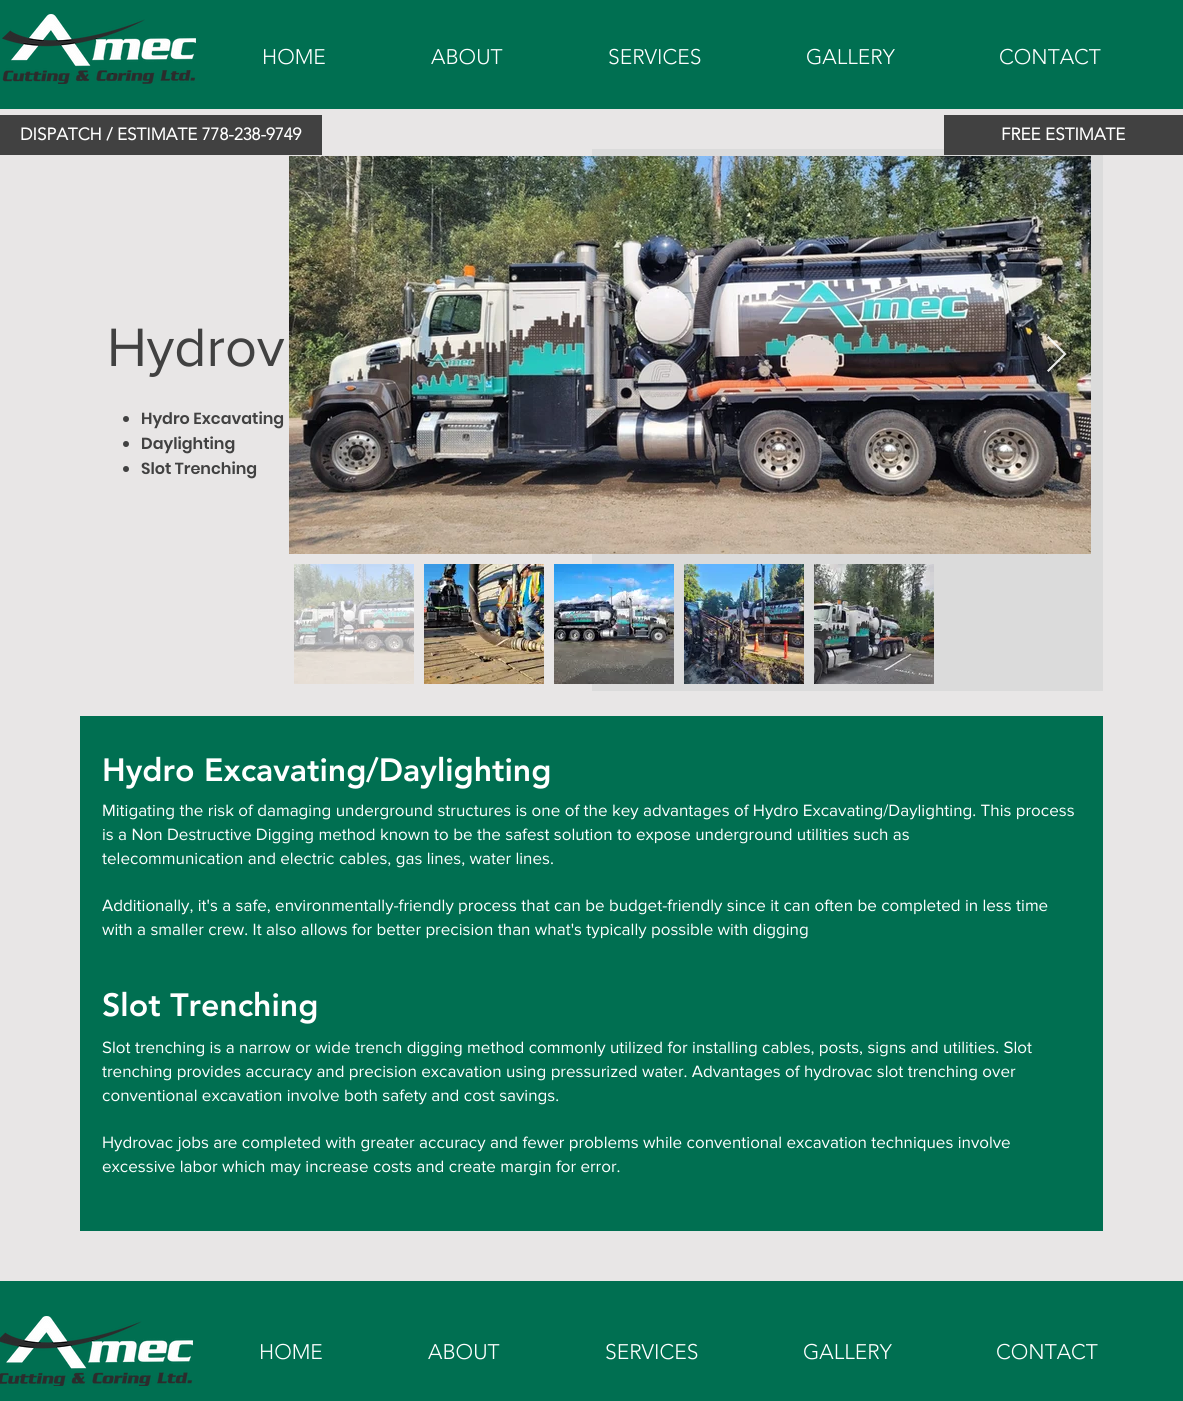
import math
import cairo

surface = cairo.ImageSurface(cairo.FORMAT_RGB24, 1183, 1401)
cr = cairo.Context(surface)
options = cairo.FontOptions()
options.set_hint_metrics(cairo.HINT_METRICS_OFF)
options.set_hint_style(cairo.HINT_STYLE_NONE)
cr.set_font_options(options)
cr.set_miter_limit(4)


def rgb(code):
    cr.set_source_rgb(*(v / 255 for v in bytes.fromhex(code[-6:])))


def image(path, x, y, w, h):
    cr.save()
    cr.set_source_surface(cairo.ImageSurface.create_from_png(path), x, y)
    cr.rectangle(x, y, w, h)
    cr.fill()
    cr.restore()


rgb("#e8e6e6")
cr.paint()
rgb("#006f51")
cr.rectangle(0, 0, 1183, 109)
cr.fill()
image("img/1.png", 2, 14, 194, 70)
for x, y, w, h, color in [
    (0, 115, 322, 40, "#414141"),
    (592, 149, 511, 542, "#dbdbdb"),
    (944, 115, 239, 40, "#414141"),
]:
    rgb(color)
    cr.rectangle(x, y, w, h)
    cr.fill()
cr.arc(126, 419, 3, 0, 2 * math.pi)
cr.fill()
cr.arc(126, 444, 3, 0, 2 * math.pi)
cr.fill()
cr.arc(126, 469, 3, 0, 2 * math.pi)
cr.fill()
image("img/2.png", 289, 156, 802, 398)
cr.set_source_rgba(1, 1, 1, 0.9)
cr.new_path()
cr.move_to(1047, 337.5)
cr.line_to(1048.5, 336)
cr.line_to(1066.5, 354)
cr.line_to(1048.5, 372)
cr.line_to(1047, 370.5)
cr.line_to(1063.5, 354)
cr.close_path()
cr.fill()
image("img/3.png", 294, 564, 120, 120)
image("img/4.png", 424, 564, 120, 120)
image("img/5.png", 554, 564, 120, 120)
image("img/6.png", 684, 564, 120, 120)
image("img/7.png", 814, 564, 120, 120)
rgb("#006f51")
cr.rectangle(80, 716, 1023, 515)
cr.fill()
cr.rectangle(0, 1281, 1183, 120)
cr.fill()
image("img/8.png", 0, 1316, 193, 70)
cr.select_font_face("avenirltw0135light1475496 Light")
cr.set_font_size(21)
rgb("#ffffff")
for x, y, s in [
    (262, 64, "HOME"),
    (431, 64, "ABOUT"),
    (608, 64, "SERVICES"),
    (806, 64, "GALLERY"),
    (999, 64, "CONTACT"),
]:
    cr.move_to(x, y)
    cr.show_text(s)
cr.select_font_face("avenirltw0135light1475496", cairo.FONT_SLANT_NORMAL, cairo.FONT_WEIGHT_BOLD)
cr.set_font_size(17)
cr.move_to(20, 140)
cr.show_text("DISPATCH / ESTIMATE 778-238-9749")
cr.move_to(1001, 140)
cr.show_text("FREE ESTIMATE")
cr.select_font_face("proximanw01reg")
cr.set_font_size(56)
rgb("#414141")
cr.move_to(107, 366)
cr.show_text("Hydrov")
cr.select_font_face("Poppins SemiBold")
cr.set_font_size(16)
for x, y, s in [
    (141, 424, "Hydro Excavating"),
    (141, 449, "Daylighting"),
    (141, 474, "Slot Trenching"),
]:
    cr.move_to(x, y)
    cr.show_text(s)
cr.select_font_face("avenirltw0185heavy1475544 Black")
cr.set_font_size(32)
rgb("#ffffff")
cr.move_to(102, 781)
cr.show_text("Hydro Excavating/Daylighting")
cr.select_font_face("proximanw01reg")
cr.set_font_size(17)
for x, y, s in [
    (102, 816, "Mitigating the risk of damaging underground structures is one of the key advantages of Hydro Excavating/Daylighting. This process"),
    (102, 840, "is a Non Destructive Digging method known to be the safest solution to expose underground utilities such as"),
    (102, 864, "telecommunication and electric cables, gas lines, water lines."),
    (102, 911, "Additionally, it's a safe, environmentally-friendly process that can be budget-friendly since it can often be completed in less time"),
    (102, 935, "with a smaller crew. It also allows for better precision than what's typically possible with digging"),
]:
    cr.move_to(x, y)
    cr.show_text(s)
cr.select_font_face("avenirltw0185heavy1475544 Black")
cr.set_font_size(32)
cr.move_to(102, 1016)
cr.show_text("Slot Trenching")
cr.select_font_face("proximanw01reg")
cr.set_font_size(17)
for x, y, s in [
    (102, 1053, "Slot trenching is a narrow or wide trench digging method commonly utilized for installing cables, posts, signs and utilities. Slot"),
    (102, 1077, "trenching provides accuracy and precision excavation using pressurized water. Advantages of hydrovac slot trenching over"),
    (102, 1101, "conventional excavation involve both safety and cost savings."),
    (102, 1148, "Hydrovac jobs are completed with greater accuracy and fewer problems while conventional excavation techniques involve"),
    (102, 1172, "excessive labor which may increase costs and create margin for error."),
]:
    cr.move_to(x, y)
    cr.show_text(s)
cr.select_font_face("avenirltw0135light1475496 Light")
cr.set_font_size(21)
for x, y, s in [
    (259, 1359, "HOME"),
    (428, 1359, "ABOUT"),
    (605, 1359, "SERVICES"),
    (803, 1359, "GALLERY"),
    (996, 1359, "CONTACT"),
]:
    cr.move_to(x, y)
    cr.show_text(s)
surface.write_to_png("page.png")
